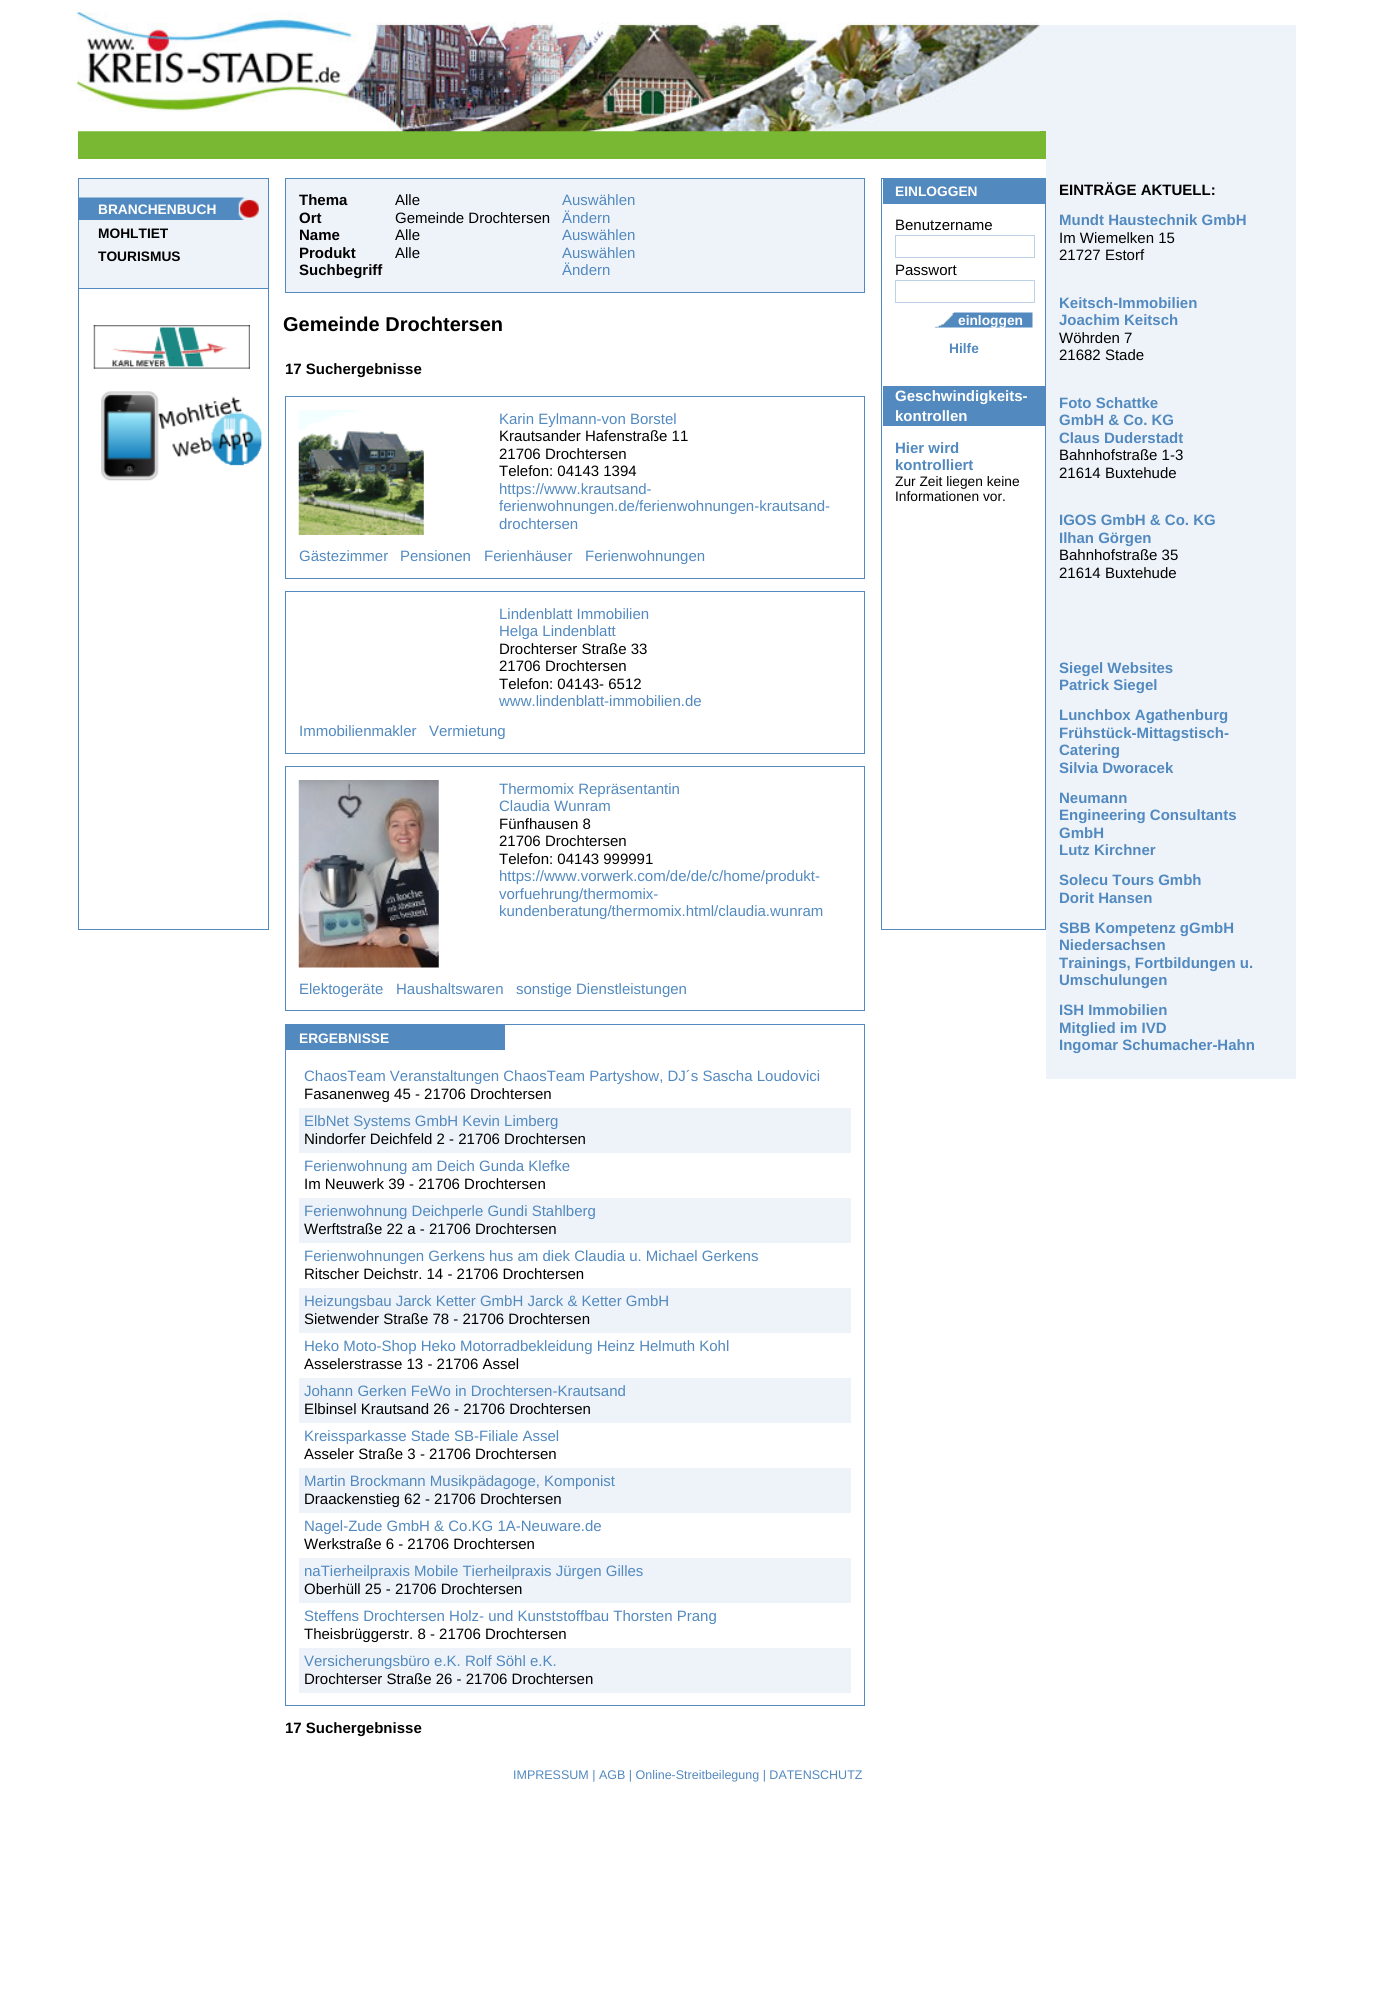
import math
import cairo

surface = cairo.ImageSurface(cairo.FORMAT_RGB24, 1373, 1993)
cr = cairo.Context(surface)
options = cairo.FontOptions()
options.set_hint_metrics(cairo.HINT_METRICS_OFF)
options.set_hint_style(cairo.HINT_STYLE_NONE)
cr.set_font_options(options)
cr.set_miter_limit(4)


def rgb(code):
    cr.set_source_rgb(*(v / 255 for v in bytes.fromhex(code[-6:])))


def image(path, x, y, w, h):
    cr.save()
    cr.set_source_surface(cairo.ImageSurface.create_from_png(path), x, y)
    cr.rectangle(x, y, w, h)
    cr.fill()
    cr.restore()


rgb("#ffffff")
cr.paint()
rgb("#78b833")
cr.rectangle(78, 131, 968, 28)
cr.fill()
image("img/1.png", 77, 12, 963, 120)
rgb("#edf3f9")
cr.rectangle(1040, 25, 6, 106)
cr.fill()
cr.rectangle(78.5, 178.5, 190, 751)
rgb("#5289bf")
cr.set_line_width(1)
cr.stroke()
rgb("#edf3f9")
cr.rectangle(79, 179, 189, 109)
cr.fill()
rgb("#5289bf")
cr.rectangle(79, 288, 189, 1)
cr.fill()
image("img/2.png", 79, 197, 180, 23)
image("img/3.png", 93, 325, 157, 44)
image("img/4.png", 101, 391, 162, 90)
rgb("#edf3f9")
cr.rectangle(285.5, 178.5, 579, 114)
cr.fill_preserve()
rgb("#5289bf")
cr.stroke()
cr.rectangle(285.5, 396.5, 579, 182)
cr.stroke()
image("img/5.png", 298, 410, 126, 125)
cr.rectangle(285.5, 591.5, 579, 162)
cr.stroke()
cr.rectangle(285.5, 766.5, 579, 244)
cr.stroke()
image("img/6.png", 298, 780, 141, 188)
cr.rectangle(285.5, 1024.5, 579, 681)
cr.stroke()
for x, y, w, h, color in [
    (286, 1025, 219, 25, "#5289bf"),
    (299, 1108, 552, 45, "#edf3f9"),
    (299, 1198, 552, 45, "#edf3f9"),
    (299, 1288, 552, 45, "#edf3f9"),
    (299, 1378, 552, 45, "#edf3f9"),
    (299, 1468, 552, 45, "#edf3f9"),
    (299, 1558, 552, 45, "#edf3f9"),
    (299, 1648, 552, 45, "#edf3f9"),
]:
    rgb(color)
    cr.rectangle(x, y, w, h)
    cr.fill()
cr.rectangle(881.5, 178.5, 164, 751)
rgb("#5289bf")
cr.stroke()
cr.rectangle(883, 179, 162, 25)
cr.fill()
cr.rectangle(895.5, 235.5, 139, 22)
rgb("#bed2e7")
cr.stroke()
cr.rectangle(895.5, 280.5, 139, 22)
cr.stroke()
image("img/7.png", 934, 312, 99, 16)
rgb("#5289bf")
cr.rectangle(883, 386, 162, 40)
cr.fill()
rgb("#edf3f9")
cr.rectangle(1046, 25, 250, 1054)
cr.fill()
cr.select_font_face("Liberation Sans", cairo.FONT_SLANT_NORMAL, cairo.FONT_WEIGHT_BOLD)
cr.set_font_size(13.75)
rgb("#ffffff")
cr.move_to(98, 214)
cr.show_text("BRANCHENBUCH")
rgb("#000000")
cr.move_to(98, 238)
cr.show_text("MOHLTIET")
cr.move_to(98, 261)
cr.show_text("TOURISMUS")
cr.set_font_size(15)
for x, y, s in [
    (299, 205, "Thema"),
    (299, 223, "Ort"),
    (299, 240, "Name"),
    (299, 258, "Produkt"),
    (299, 275, "Suchbegriff"),
]:
    cr.move_to(x, y)
    cr.show_text(s)
cr.select_font_face("Liberation Sans")
for x, y, s in [
    (395, 205, "Alle"),
    (395, 223, "Gemeinde Drochtersen"),
    (395, 240, "Alle"),
    (395, 258, "Alle"),
]:
    cr.move_to(x, y)
    cr.show_text(s)
rgb("#5289bf")
for x, y, s in [
    (562, 205, "Auswählen"),
    (562, 223, "Ändern"),
    (562, 240, "Auswählen"),
    (562, 258, "Auswählen"),
    (562, 275, "Ändern"),
]:
    cr.move_to(x, y)
    cr.show_text(s)
cr.select_font_face("Liberation Sans", cairo.FONT_SLANT_NORMAL, cairo.FONT_WEIGHT_BOLD)
cr.set_font_size(20)
rgb("#000000")
cr.move_to(283, 331)
cr.show_text("Gemeinde Drochtersen")
cr.set_font_size(15)
cr.move_to(285, 374)
cr.show_text("17 Suchergebnisse")
cr.select_font_face("Liberation Sans")
rgb("#5289bf")
cr.move_to(499, 424)
cr.show_text("Karin Eylmann-von Borstel")
rgb("#000000")
for x, y, s in [
    (499, 441, "Krautsander Hafenstraße 11"),
    (499, 459, "21706 Drochtersen"),
    (499, 476, "Telefon: 04143 1394"),
]:
    cr.move_to(x, y)
    cr.show_text(s)
rgb("#5289bf")
for x, y, s in [
    (499, 494, "https://www.krautsand-"),
    (499, 511, "ferienwohnungen.de/ferienwohnungen-krautsand-"),
    (499, 529, "drochtersen"),
    (299, 561, "Gästezimmer"),
    (400, 561, "Pensionen"),
    (484, 561, "Ferienhäuser"),
    (585, 561, "Ferienwohnungen"),
    (499, 619, "Lindenblatt Immobilien"),
    (499, 636, "Helga Lindenblatt"),
]:
    cr.move_to(x, y)
    cr.show_text(s)
rgb("#000000")
for x, y, s in [
    (499, 654, "Drochterser Straße 33"),
    (499, 671, "21706 Drochtersen"),
    (499, 689, "Telefon: 04143- 6512"),
]:
    cr.move_to(x, y)
    cr.show_text(s)
rgb("#5289bf")
for x, y, s in [
    (499, 706, "www.lindenblatt-immobilien.de"),
    (299, 736, "Immobilienmakler"),
    (429, 736, "Vermietung"),
    (499, 794, "Thermomix Repräsentantin"),
    (499, 811, "Claudia Wunram"),
]:
    cr.move_to(x, y)
    cr.show_text(s)
rgb("#000000")
for x, y, s in [
    (499, 829, "Fünfhausen 8"),
    (499, 846, "21706 Drochtersen"),
    (499, 864, "Telefon: 04143 999991"),
]:
    cr.move_to(x, y)
    cr.show_text(s)
rgb("#5289bf")
for x, y, s in [
    (499, 881, "https://www.vorwerk.com/de/de/c/home/produkt-"),
    (499, 899, "vorfuehrung/thermomix-"),
    (499, 916, "kundenberatung/thermomix.html/claudia.wunram"),
    (299, 994, "Elektogeräte"),
    (396, 994, "Haushaltswaren"),
    (516, 994, "sonstige Dienstleistungen"),
]:
    cr.move_to(x, y)
    cr.show_text(s)
cr.select_font_face("Liberation Sans", cairo.FONT_SLANT_NORMAL, cairo.FONT_WEIGHT_BOLD)
cr.set_font_size(13.75)
rgb("#ffffff")
cr.move_to(299, 1043)
cr.show_text("ERGEBNISSE")
cr.select_font_face("Liberation Sans")
cr.set_font_size(15)
rgb("#5289bf")
cr.move_to(304, 1081)
cr.show_text("ChaosTeam Veranstaltungen ChaosTeam Partyshow, DJ´s Sascha Loudovici")
rgb("#000000")
cr.move_to(304, 1099)
cr.show_text("Fasanenweg 45 - 21706 Drochtersen")
rgb("#5289bf")
cr.move_to(304, 1126)
cr.show_text("ElbNet Systems GmbH Kevin Limberg")
rgb("#000000")
cr.move_to(304, 1144)
cr.show_text("Nindorfer Deichfeld 2 - 21706 Drochtersen")
rgb("#5289bf")
cr.move_to(304, 1171)
cr.show_text("Ferienwohnung am Deich Gunda Klefke")
rgb("#000000")
cr.move_to(304, 1189)
cr.show_text("Im Neuwerk 39 - 21706 Drochtersen")
rgb("#5289bf")
cr.move_to(304, 1216)
cr.show_text("Ferienwohnung Deichperle Gundi Stahlberg")
rgb("#000000")
cr.move_to(304, 1234)
cr.show_text("Werftstraße 22 a - 21706 Drochtersen")
rgb("#5289bf")
cr.move_to(304, 1261)
cr.show_text("Ferienwohnungen Gerkens hus am diek Claudia u. Michael Gerkens")
rgb("#000000")
cr.move_to(304, 1279)
cr.show_text("Ritscher Deichstr. 14 - 21706 Drochtersen")
rgb("#5289bf")
cr.move_to(304, 1306)
cr.show_text("Heizungsbau Jarck Ketter GmbH Jarck & Ketter GmbH")
rgb("#000000")
cr.move_to(304, 1324)
cr.show_text("Sietwender Straße 78 - 21706 Drochtersen")
rgb("#5289bf")
cr.move_to(304, 1351)
cr.show_text("Heko Moto-Shop Heko Motorradbekleidung Heinz Helmuth Kohl")
rgb("#000000")
cr.move_to(304, 1369)
cr.show_text("Asselerstrasse 13 - 21706 Assel")
rgb("#5289bf")
cr.move_to(304, 1396)
cr.show_text("Johann Gerken FeWo in Drochtersen-Krautsand")
rgb("#000000")
cr.move_to(304, 1414)
cr.show_text("Elbinsel Krautsand 26 - 21706 Drochtersen")
rgb("#5289bf")
cr.move_to(304, 1441)
cr.show_text("Kreissparkasse Stade SB-Filiale Assel")
rgb("#000000")
cr.move_to(304, 1459)
cr.show_text("Asseler Straße 3 - 21706 Drochtersen")
rgb("#5289bf")
cr.move_to(304, 1486)
cr.show_text("Martin Brockmann Musikpädagoge, Komponist")
rgb("#000000")
cr.move_to(304, 1504)
cr.show_text("Draackenstieg 62 - 21706 Drochtersen")
rgb("#5289bf")
cr.move_to(304, 1531)
cr.show_text("Nagel-Zude GmbH & Co.KG 1A-Neuware.de")
rgb("#000000")
cr.move_to(304, 1549)
cr.show_text("Werkstraße 6 - 21706 Drochtersen")
rgb("#5289bf")
cr.move_to(304, 1576)
cr.show_text("naTierheilpraxis Mobile Tierheilpraxis Jürgen Gilles")
rgb("#000000")
cr.move_to(304, 1594)
cr.show_text("Oberhüll 25 - 21706 Drochtersen")
rgb("#5289bf")
cr.move_to(304, 1621)
cr.show_text("Steffens Drochtersen Holz- und Kunststoffbau Thorsten Prang")
rgb("#000000")
cr.move_to(304, 1639)
cr.show_text("Theisbrüggerstr. 8 - 21706 Drochtersen")
rgb("#5289bf")
cr.move_to(304, 1666)
cr.show_text("Versicherungsbüro e.K. Rolf Söhl e.K.")
rgb("#000000")
cr.move_to(304, 1684)
cr.show_text("Drochterser Straße 26 - 21706 Drochtersen")
cr.select_font_face("Liberation Sans", cairo.FONT_SLANT_NORMAL, cairo.FONT_WEIGHT_BOLD)
cr.move_to(285, 1733)
cr.show_text("17 Suchergebnisse")
cr.set_font_size(13.75)
rgb("#ffffff")
cr.move_to(895, 196)
cr.show_text("EINLOGGEN")
cr.select_font_face("Liberation Sans")
cr.set_font_size(15)
rgb("#000000")
cr.move_to(895, 230)
cr.show_text("Benutzername")
cr.move_to(895, 275)
cr.show_text("Passwort")
cr.select_font_face("Liberation Sans", cairo.FONT_SLANT_NORMAL, cairo.FONT_WEIGHT_BOLD)
cr.set_font_size(13.75)
rgb("#ffffff")
cr.move_to(958, 325)
cr.show_text("einloggen")
rgb("#5289bf")
cr.move_to(949, 353)
cr.show_text("Hilfe")
cr.set_font_size(15)
rgb("#ffffff")
cr.move_to(895, 401)
cr.show_text("Geschwindigkeits-")
cr.move_to(895, 421)
cr.show_text("kontrollen")
rgb("#5289bf")
cr.move_to(895, 453)
cr.show_text("Hier wird")
cr.move_to(895, 470)
cr.show_text("kontrolliert")
cr.select_font_face("Liberation Sans")
cr.set_font_size(13.75)
rgb("#000000")
cr.move_to(895, 486)
cr.show_text("Zur Zeit liegen keine")
cr.move_to(895, 501)
cr.show_text("Informationen vor.")
cr.select_font_face("Liberation Sans", cairo.FONT_SLANT_NORMAL, cairo.FONT_WEIGHT_BOLD)
cr.set_font_size(15)
cr.move_to(1059, 195)
cr.show_text("EINTRÄGE AKTUELL:")
rgb("#5289bf")
cr.move_to(1059, 225)
cr.show_text("Mundt Haustechnik GmbH")
cr.select_font_face("Liberation Sans")
rgb("#000000")
cr.move_to(1059, 243)
cr.show_text("Im Wiemelken 15")
cr.move_to(1059, 260)
cr.show_text("21727 Estorf")
cr.select_font_face("Liberation Sans", cairo.FONT_SLANT_NORMAL, cairo.FONT_WEIGHT_BOLD)
rgb("#5289bf")
cr.move_to(1059, 308)
cr.show_text("Keitsch-Immobilien")
cr.move_to(1059, 325)
cr.show_text("Joachim Keitsch")
cr.select_font_face("Liberation Sans")
rgb("#000000")
cr.move_to(1059, 343)
cr.show_text("Wöhrden 7")
cr.move_to(1059, 360)
cr.show_text("21682 Stade")
cr.select_font_face("Liberation Sans", cairo.FONT_SLANT_NORMAL, cairo.FONT_WEIGHT_BOLD)
rgb("#5289bf")
for x, y, s in [
    (1059, 408, "Foto Schattke"),
    (1059, 425, "GmbH & Co. KG"),
    (1059, 443, "Claus Duderstadt"),
]:
    cr.move_to(x, y)
    cr.show_text(s)
cr.select_font_face("Liberation Sans")
rgb("#000000")
cr.move_to(1059, 460)
cr.show_text("Bahnhofstraße 1-3")
cr.move_to(1059, 478)
cr.show_text("21614 Buxtehude")
cr.select_font_face("Liberation Sans", cairo.FONT_SLANT_NORMAL, cairo.FONT_WEIGHT_BOLD)
rgb("#5289bf")
cr.move_to(1059, 525)
cr.show_text("IGOS GmbH & Co. KG")
cr.move_to(1059, 543)
cr.show_text("Ilhan Görgen")
cr.select_font_face("Liberation Sans")
rgb("#000000")
cr.move_to(1059, 560)
cr.show_text("Bahnhofstraße 35")
cr.move_to(1059, 578)
cr.show_text("21614 Buxtehude")
cr.select_font_face("Liberation Sans", cairo.FONT_SLANT_NORMAL, cairo.FONT_WEIGHT_BOLD)
rgb("#5289bf")
for x, y, s in [
    (1059, 673, "Siegel Websites"),
    (1059, 690, "Patrick Siegel"),
    (1059, 720, "Lunchbox Agathenburg"),
    (1059, 738, "Frühstück-Mittagstisch-"),
    (1059, 755, "Catering"),
    (1059, 773, "Silvia Dworacek"),
    (1059, 803, "Neumann"),
    (1059, 820, "Engineering Consultants"),
    (1059, 838, "GmbH"),
    (1059, 855, "Lutz Kirchner"),
    (1059, 885, "Solecu Tours Gmbh"),
    (1059, 903, "Dorit Hansen"),
    (1059, 933, "SBB Kompetenz gGmbH"),
    (1059, 950, "Niedersachsen"),
    (1059, 968, "Trainings, Fortbildungen u."),
    (1059, 985, "Umschulungen"),
    (1059, 1015, "ISH Immobilien"),
    (1059, 1033, "Mitglied im IVD"),
    (1059, 1050, "Ingomar Schumacher-Hahn"),
]:
    cr.move_to(x, y)
    cr.show_text(s)
cr.select_font_face("Liberation Sans")
cr.set_font_size(12.5)
cr.move_to(513, 1779)
cr.show_text("IMPRESSUM | AGB | Online-Streitbeilegung | DATENSCHUTZ")
surface.write_to_png("page.png")
